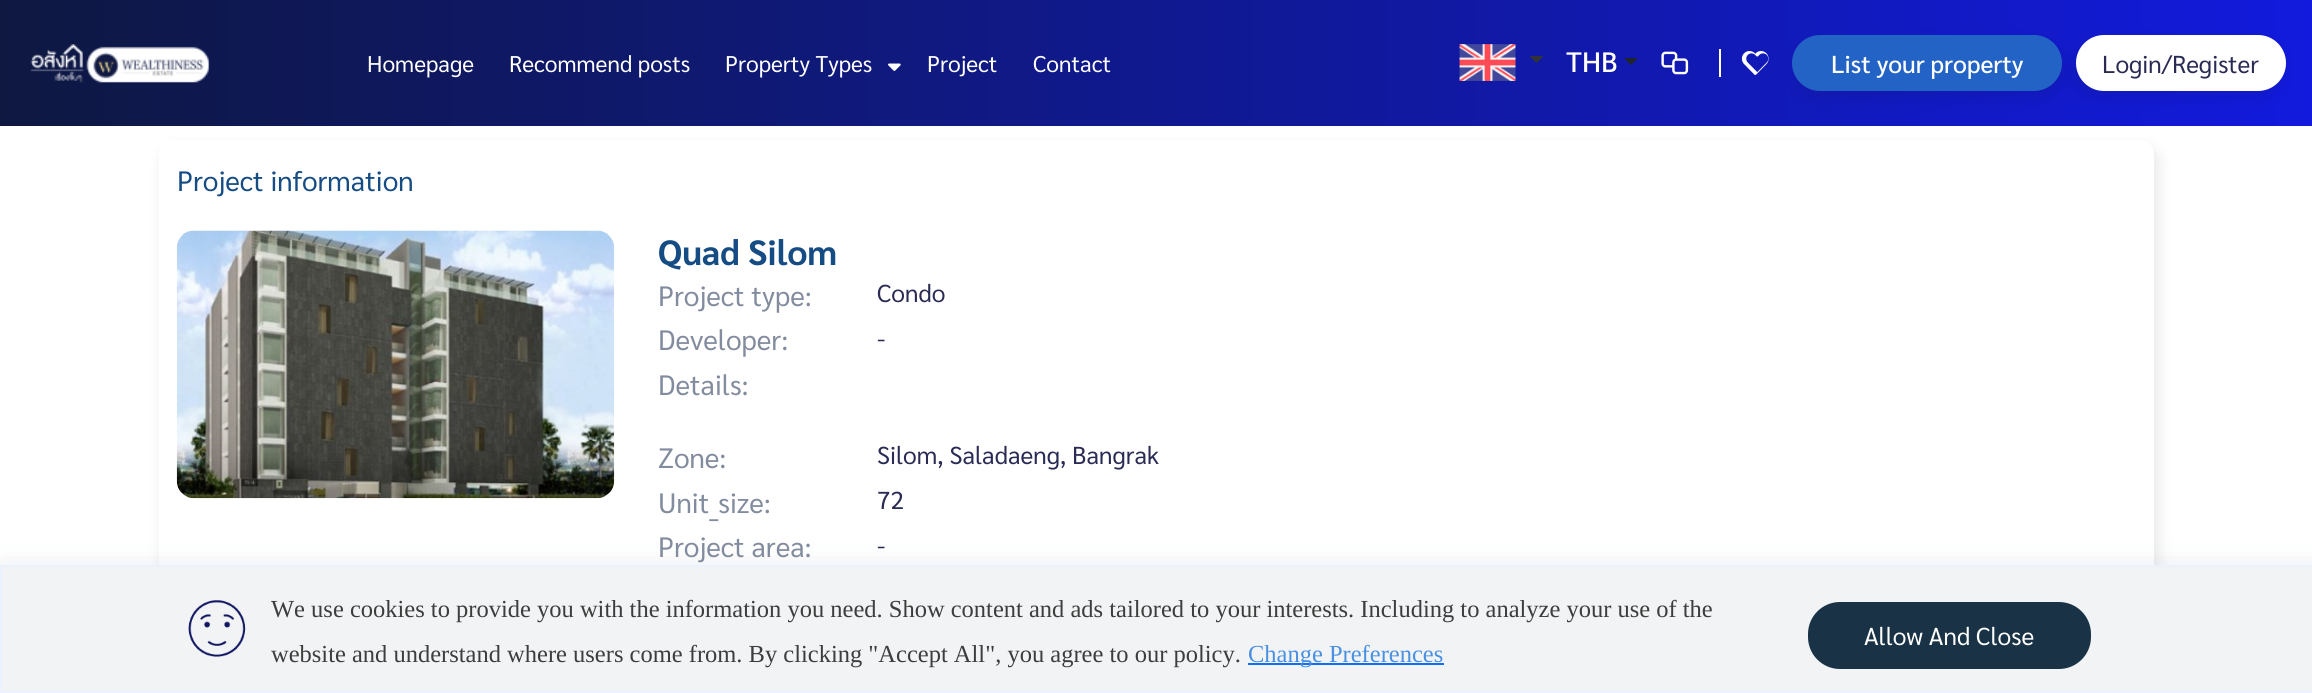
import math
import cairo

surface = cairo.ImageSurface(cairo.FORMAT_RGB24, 2312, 693)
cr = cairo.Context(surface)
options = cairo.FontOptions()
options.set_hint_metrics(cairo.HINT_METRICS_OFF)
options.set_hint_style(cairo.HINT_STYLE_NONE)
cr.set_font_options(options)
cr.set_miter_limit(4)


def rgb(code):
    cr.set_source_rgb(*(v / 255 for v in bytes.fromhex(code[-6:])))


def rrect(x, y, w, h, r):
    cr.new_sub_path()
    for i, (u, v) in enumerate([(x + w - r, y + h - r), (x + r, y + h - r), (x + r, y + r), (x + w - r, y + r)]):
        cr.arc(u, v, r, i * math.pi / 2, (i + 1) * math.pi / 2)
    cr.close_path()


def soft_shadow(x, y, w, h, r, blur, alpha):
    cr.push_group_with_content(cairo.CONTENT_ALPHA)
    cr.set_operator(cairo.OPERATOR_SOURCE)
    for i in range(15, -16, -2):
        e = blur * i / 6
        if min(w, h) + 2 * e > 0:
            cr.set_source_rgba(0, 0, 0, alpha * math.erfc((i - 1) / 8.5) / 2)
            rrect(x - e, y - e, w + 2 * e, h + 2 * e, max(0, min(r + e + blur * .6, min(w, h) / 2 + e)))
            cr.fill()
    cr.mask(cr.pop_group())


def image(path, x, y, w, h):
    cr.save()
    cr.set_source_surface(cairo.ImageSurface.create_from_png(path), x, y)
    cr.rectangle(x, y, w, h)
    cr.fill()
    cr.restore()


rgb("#ffffff")
cr.paint()
rgb("#0a0a10")
soft_shadow(163, 147, 1995, 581, 14, 7, 0.1)
gradient = cairo.LinearGradient(0, 63, 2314, 63)
gradient.add_color_stop_rgba(0, 0.055, 0.094, 0.255, 1)
gradient.add_color_stop_rgba(1, 0.071, 0.102, 0.867, 1)
cr.set_source(gradient)
cr.rectangle(0, 0, 2312, 126)
cr.fill()
image("img/1.png", 30, 44, 180, 39)
image("img/2.png", 888, 63, 13, 8)
image("img/3.png", 1459, 44, 57, 37)
rgb("#333333")
cr.new_path()
cr.move_to(1529.5, 56)
cr.line_to(1543.5, 56)
cr.line_to(1536.5, 63)
cr.close_path()
cr.fill()
rgb("#212529")
cr.new_path()
cr.move_to(1624, 58)
cr.line_to(1638, 58)
cr.line_to(1631, 65)
cr.close_path()
cr.fill()
rgb("#ffffff")
cr.rectangle(1719, 49, 2, 28)
cr.fill()
image("img/4.png", 1661, 51, 28, 24)
image("img/5.png", 1741, 51, 28, 24)
rgb("#0a0a10")
soft_shadow(1796, 42, 269, 56, 28, 7, 0.1)
rgb("#2263c5")
rrect(1792, 35, 270, 56, 28)
cr.fill()
rgb("#0a0a10")
soft_shadow(2072, 42, 210, 56, 28, 7, 0.1)
rgb("#ffffff")
rrect(2076, 35, 210, 56, 28)
cr.fill()
rrect(159, 140, 1995, 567, 14)
cr.fill()
image("img/6.png", 176, 230, 439, 269)
rgb("#384b6c")
soft_shadow(4, 572, 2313, 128, 0, 14, 0.2)
rgb("#f1f3f4")
cr.rectangle(1, 566, 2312, 126)
cr.fill_preserve()
rgb("#ebf2fe")
cr.stroke()
image("img/7.png", 188, 600, 58, 57)
rgb("#0d6efd")
cr.rectangle(1248, 663, 196, 2)
cr.fill()
rgb("#193245")
rrect(1808, 602, 283, 67, 32)
cr.fill()
cr.select_font_face("Sarabun")
cr.set_font_size(22.75)
rgb("#ffffff")
for x, y, s in [
    (367, 72, "Homepage"),
    (509, 72, "Recommend posts"),
    (725, 72, "Property Types"),
    (927, 72, "Project"),
    (1033, 72, "Contact"),
]:
    cr.move_to(x, y)
    cr.show_text(s)
cr.select_font_face("Sarabun Medium")
cr.set_font_size(28)
cr.move_to(1566, 72)
cr.show_text("THB")
cr.set_font_size(24.5)
cr.move_to(1831, 73)
cr.show_text("List your property")
cr.select_font_face("Sarabun")
rgb("#292b54")
cr.move_to(2102, 73)
cr.show_text("Login/Register")
cr.set_font_size(28)
rgb("#164c84")
cr.move_to(177, 191)
cr.show_text("Project information")
cr.select_font_face("Sarabun", cairo.FONT_SLANT_NORMAL, cairo.FONT_WEIGHT_BOLD)
cr.set_font_size(35)
cr.move_to(658, 265)
cr.show_text("Quad Silom")
cr.select_font_face("Sarabun")
cr.set_font_size(28)
rgb("#828c9e")
cr.move_to(658, 306)
cr.show_text("Project type:")
cr.set_font_size(24.5)
rgb("#292b54")
cr.move_to(877, 302)
cr.show_text("Condo")
cr.set_font_size(28)
rgb("#828c9e")
cr.move_to(658, 350)
cr.show_text("Developer:")
cr.set_font_size(24.5)
rgb("#292b54")
cr.move_to(877, 347)
cr.show_text("-")
cr.set_font_size(28)
rgb("#828c9e")
cr.move_to(658, 395)
cr.show_text("Details:")
cr.move_to(658, 468)
cr.show_text("Zone:")
cr.set_font_size(24.5)
rgb("#292b54")
cr.move_to(877, 464)
cr.show_text("Silom, Saladaeng, Bangrak")
cr.set_font_size(28)
rgb("#828c9e")
cr.move_to(658, 513)
cr.show_text("Unit_size:")
cr.set_font_size(24.5)
rgb("#292b54")
cr.move_to(877, 509)
cr.show_text("72")
cr.set_font_size(28)
rgb("#828c9e")
cr.move_to(658, 557)
cr.show_text("Project area:")
cr.set_font_size(24.5)
rgb("#292b54")
cr.move_to(877, 554)
cr.show_text("-")
cr.select_font_face("Liberation Serif")
rgb("#3d3d3d")
cr.move_to(271, 617)
cr.show_text("We use cookies to provide you with the information you need. Show content and ads tailored to your interests. Including to analyze your use of the")
cr.move_to(271, 662)
cr.show_text("website and understand where users come from. By clicking \"Accept All\", you agree to our policy.")
rgb("#4a90e2")
cr.move_to(1248, 662)
cr.show_text("Change Preferences")
cr.select_font_face("Sarabun")
rgb("#ffffff")
cr.move_to(1864, 645)
cr.show_text("Allow And Close")
surface.write_to_png("page.png")
